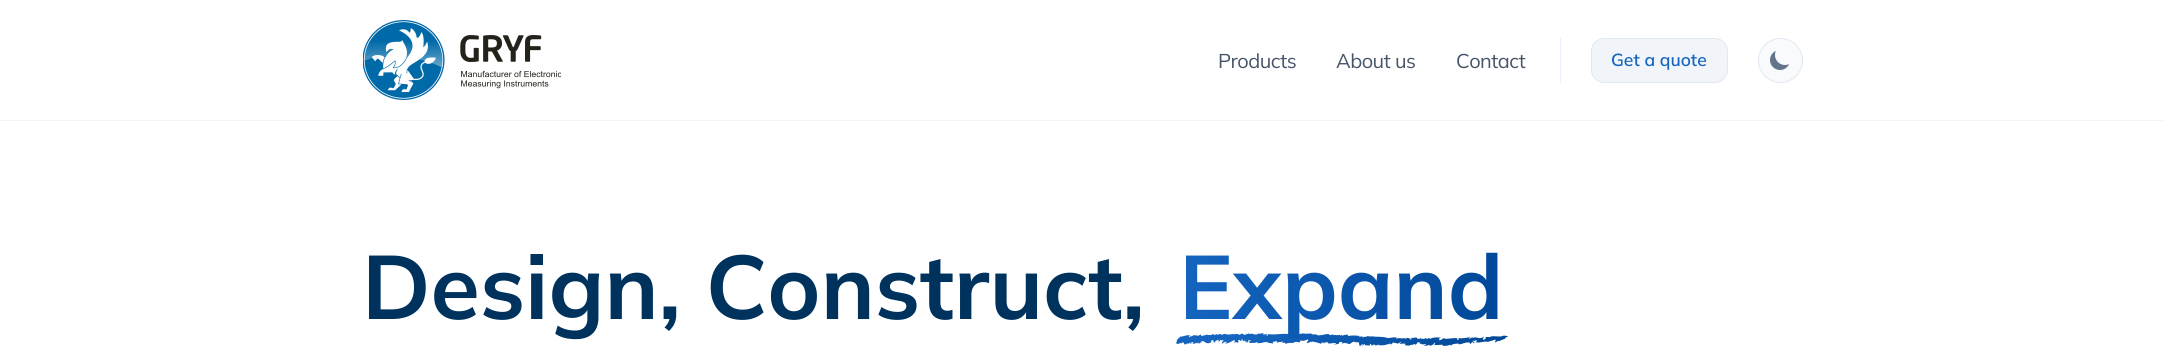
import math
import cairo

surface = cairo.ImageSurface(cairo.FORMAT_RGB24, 2163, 363)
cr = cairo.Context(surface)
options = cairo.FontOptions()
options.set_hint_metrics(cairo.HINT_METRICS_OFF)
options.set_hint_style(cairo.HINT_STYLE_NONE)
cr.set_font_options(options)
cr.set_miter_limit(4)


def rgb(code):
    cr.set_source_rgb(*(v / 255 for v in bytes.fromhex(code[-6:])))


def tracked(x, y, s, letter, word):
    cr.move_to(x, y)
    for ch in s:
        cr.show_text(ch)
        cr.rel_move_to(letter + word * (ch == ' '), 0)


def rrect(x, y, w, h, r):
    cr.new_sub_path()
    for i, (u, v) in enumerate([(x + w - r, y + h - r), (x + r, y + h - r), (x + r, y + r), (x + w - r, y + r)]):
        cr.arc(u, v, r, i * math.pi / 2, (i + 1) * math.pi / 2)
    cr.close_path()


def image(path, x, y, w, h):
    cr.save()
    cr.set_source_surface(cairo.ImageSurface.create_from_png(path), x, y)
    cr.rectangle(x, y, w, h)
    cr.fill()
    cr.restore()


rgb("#ffffff")
cr.paint()
rgb("#f1f5f9")
cr.rectangle(0, 120, 2163, 1)
cr.fill()
image("img/1.png", 363, 20, 198, 80)
rgb("#e8f0f9")
cr.rectangle(1560, 38, 1, 45)
cr.fill()
rgb("#f1f5f9")
rrect(1591.5, 38.5, 136, 44, 12.5)
cr.fill_preserve()
rgb("#e2e8f0")
cr.set_line_width(1)
cr.stroke()
rgb("#f8fafc")
cr.arc(1780.5, 60.5, 22, 0, 2 * math.pi)
cr.fill_preserve()
rgb("#e2e8f0")
cr.stroke()
image("img/2.png", 1770, 51, 19, 19)
image("img/3.png", 1176, 333, 333, 13)
cr.select_font_face("Mulish")
cr.set_font_size(20)
rgb("#475569")
for x, y, s in [
    (1218, 68, "Products"),
    (1336, 68, "About us"),
    (1456, 68, "Contact"),
]:
    tracked(x, y, s, -0.5, 0)
cr.select_font_face("Mulish SemiBold")
cr.set_font_size(17.5)
rgb("#1565c0")
cr.move_to(1611, 66)
cr.show_text("Get a quote")
cr.select_font_face("Mulish", cairo.FONT_SLANT_NORMAL, cairo.FONT_WEIGHT_BOLD)
cr.set_font_size(90)
rgb("#00325e")
cr.move_to(362, 319)
cr.show_text("Design, Construct,")
gradient = cairo.LinearGradient(1169, 285, 1514, 285)
gradient.add_color_stop_rgba(0, 0.082, 0.396, 0.753, 1)
gradient.add_color_stop_rgba(1, 0, 0.278, 0.592, 1)
cr.set_source(gradient)
cr.move_to(1179, 319)
cr.show_text("Expand")
surface.write_to_png("page.png")
